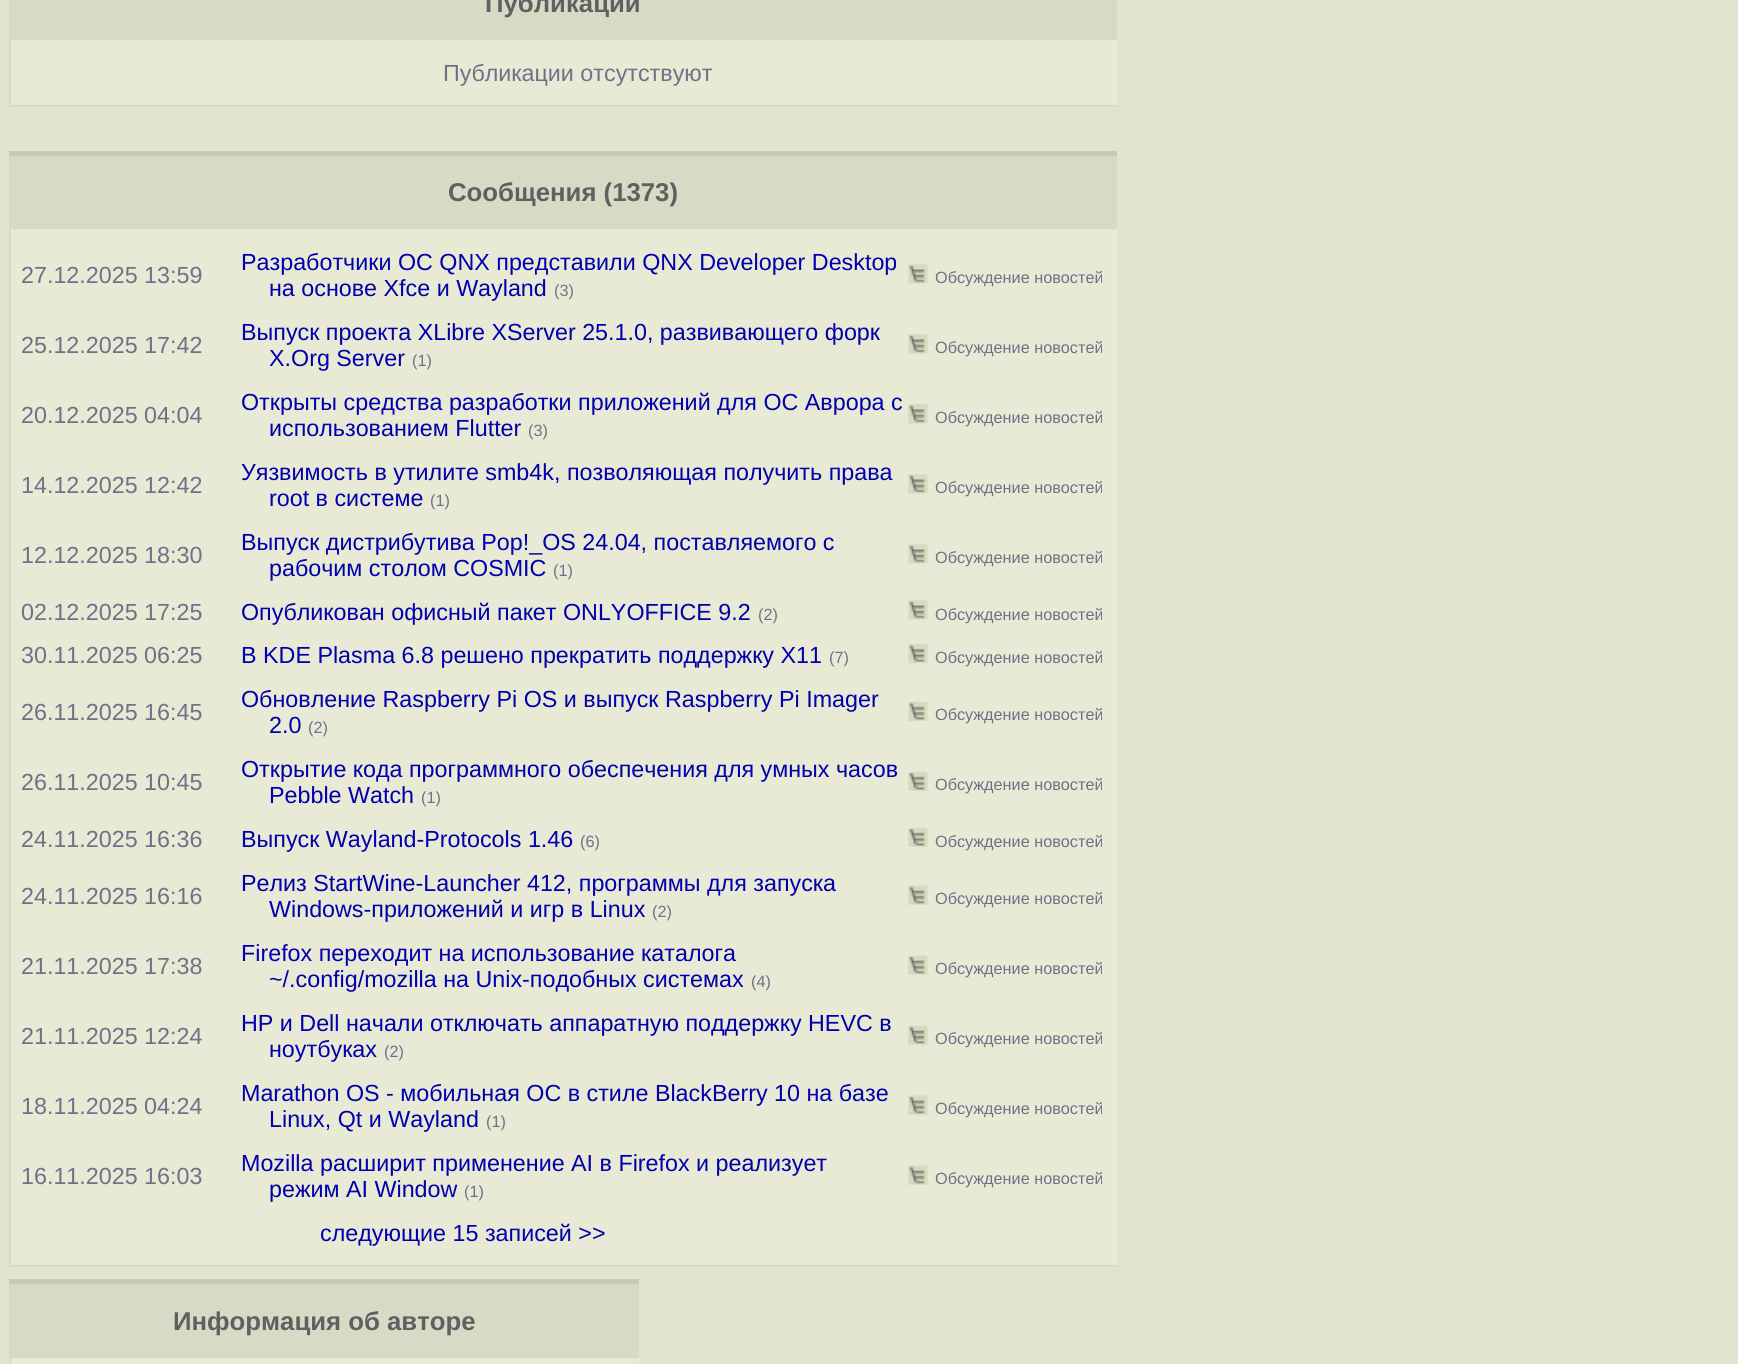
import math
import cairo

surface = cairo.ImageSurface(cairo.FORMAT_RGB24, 1738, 1364)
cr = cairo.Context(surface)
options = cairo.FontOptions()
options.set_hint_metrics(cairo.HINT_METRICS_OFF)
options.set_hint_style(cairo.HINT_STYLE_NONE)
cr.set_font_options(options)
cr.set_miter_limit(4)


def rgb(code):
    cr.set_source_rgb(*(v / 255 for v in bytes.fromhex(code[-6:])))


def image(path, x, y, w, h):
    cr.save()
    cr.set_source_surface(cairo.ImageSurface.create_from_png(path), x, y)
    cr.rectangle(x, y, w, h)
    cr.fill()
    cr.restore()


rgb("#e3e4d0")
cr.paint()
for x, y, w, h, color in [
    (9, 0, 1108, 40, "#d9dac6"),
    (11, 40, 1106, 65, "#e9ead6"),
    (9, 105, 1108, 2, "#d9dac6"),
    (9, 40, 2, 67, "#d9dac6"),
    (9, 156, 1108, 73, "#d9dac6"),
    (9, 151, 1108, 5, "#c9cab6"),
    (11, 229, 1106, 1036, "#e9ead6"),
    (9, 1265, 1108, 2, "#d9dac6"),
    (9, 229, 2, 1038, "#d9dac6"),
]:
    rgb(color)
    cr.rectangle(x, y, w, h)
    cr.fill()
image("img/1.png", 908, 264, 20, 20)
image("img/1.png", 908, 334, 20, 20)
image("img/1.png", 908, 404, 20, 20)
image("img/1.png", 908, 474, 20, 20)
image("img/1.png", 908, 544, 20, 20)
image("img/1.png", 908, 600, 20, 20)
image("img/2.png", 908, 644, 20, 20)
image("img/3.png", 908, 701, 20, 20)
image("img/3.png", 908, 771, 20, 20)
image("img/3.png", 908, 827, 20, 20)
image("img/4.png", 908, 885, 20, 20)
image("img/4.png", 908, 955, 20, 20)
image("img/4.png", 908, 1025, 20, 20)
image("img/4.png", 908, 1095, 20, 20)
image("img/4.png", 908, 1165, 20, 20)
for x, y, w, h, color in [
    (9, 1284, 630, 74, "#d9dac6"),
    (9, 1279, 630, 5, "#c9cab6"),
    (9, 1358, 630, 6, "#e9ead6"),
    (9, 1358, 2, 6, "#d9dac6"),
]:
    rgb(color)
    cr.rectangle(x, y, w, h)
    cr.fill()
cr.select_font_face("Liberation Sans", cairo.FONT_SLANT_NORMAL, cairo.FONT_WEIGHT_BOLD)
cr.set_font_size(25.75)
rgb("#606060")
cr.move_to(485, 12)
cr.show_text("Публикации")
cr.select_font_face("Liberation Sans")
cr.set_font_size(23.3)
rgb("#707088")
cr.move_to(443, 81)
cr.show_text("Публикации отсутствуют")
cr.select_font_face("Liberation Sans", cairo.FONT_SLANT_NORMAL, cairo.FONT_WEIGHT_BOLD)
cr.set_font_size(25.75)
rgb("#606060")
cr.move_to(448, 201)
cr.show_text("Сообщения (1373)")
cr.select_font_face("Liberation Sans")
cr.set_font_size(23.3)
rgb("#707088")
cr.move_to(21, 283)
cr.show_text("27.12.2025 13:59")
rgb("#0000ad")
cr.move_to(241, 270)
cr.show_text("Разработчики ОС QNX представили QNX Developer Desktop")
cr.move_to(269, 296)
cr.show_text("на основе Xfce и Wayland")
cr.set_font_size(16.25)
rgb("#707088")
cr.move_to(554, 296)
cr.show_text("(3)")
cr.move_to(935, 283)
cr.show_text("Обсуждение новостей")
cr.set_font_size(23.3)
cr.move_to(21, 353)
cr.show_text("25.12.2025 17:42")
rgb("#0000ad")
cr.move_to(241, 340)
cr.show_text("Выпуск проекта XLibre XServer 25.1.0, развивающего форк")
cr.move_to(269, 366)
cr.show_text("X.Org Server")
cr.set_font_size(16.25)
rgb("#707088")
cr.move_to(412, 366)
cr.show_text("(1)")
cr.move_to(935, 353)
cr.show_text("Обсуждение новостей")
cr.set_font_size(23.3)
cr.move_to(21, 423)
cr.show_text("20.12.2025 04:04")
rgb("#0000ad")
cr.move_to(241, 410)
cr.show_text("Открыты средства разработки приложений для ОС Аврора с")
cr.move_to(269, 436)
cr.show_text("использованием Flutter")
cr.set_font_size(16.25)
rgb("#707088")
cr.move_to(528, 436)
cr.show_text("(3)")
cr.move_to(935, 423)
cr.show_text("Обсуждение новостей")
cr.set_font_size(23.3)
cr.move_to(21, 493)
cr.show_text("14.12.2025 12:42")
rgb("#0000ad")
cr.move_to(241, 480)
cr.show_text("Уязвимость в утилите smb4k, позволяющая получить права")
cr.move_to(269, 506)
cr.show_text("root в системе")
cr.set_font_size(16.25)
rgb("#707088")
cr.move_to(430, 506)
cr.show_text("(1)")
cr.move_to(935, 493)
cr.show_text("Обсуждение новостей")
cr.set_font_size(23.3)
cr.move_to(21, 563)
cr.show_text("12.12.2025 18:30")
rgb("#0000ad")
cr.move_to(241, 550)
cr.show_text("Выпуск дистрибутива Pop!_OS 24.04, поставляемого с")
cr.move_to(269, 576)
cr.show_text("рабочим столом COSMIC")
cr.set_font_size(16.25)
rgb("#707088")
cr.move_to(553, 576)
cr.show_text("(1)")
cr.move_to(935, 563)
cr.show_text("Обсуждение новостей")
cr.set_font_size(23.3)
cr.move_to(21, 620)
cr.show_text("02.12.2025 17:25")
rgb("#0000ad")
cr.move_to(241, 620)
cr.show_text("Опубликован офисный пакет ONLYOFFICE 9.2")
cr.set_font_size(16.25)
rgb("#707088")
cr.move_to(758, 620)
cr.show_text("(2)")
cr.move_to(935, 620)
cr.show_text("Обсуждение новостей")
cr.set_font_size(23.3)
cr.move_to(21, 663)
cr.show_text("30.11.2025 06:25")
rgb("#0000ad")
cr.move_to(241, 663)
cr.show_text("В KDE Plasma 6.8 решено прекратить поддержку X11")
cr.set_font_size(16.25)
rgb("#707088")
cr.move_to(829, 663)
cr.show_text("(7)")
cr.move_to(935, 663)
cr.show_text("Обсуждение новостей")
cr.set_font_size(23.3)
cr.move_to(21, 720)
cr.show_text("26.11.2025 16:45")
rgb("#0000ad")
cr.move_to(241, 707)
cr.show_text("Обновление Raspberry Pi OS и выпуск Raspberry Pi Imager")
cr.move_to(269, 733)
cr.show_text("2.0")
cr.set_font_size(16.25)
rgb("#707088")
cr.move_to(308, 733)
cr.show_text("(2)")
cr.move_to(935, 720)
cr.show_text("Обсуждение новостей")
cr.set_font_size(23.3)
cr.move_to(21, 790)
cr.show_text("26.11.2025 10:45")
rgb("#0000ad")
cr.move_to(241, 777)
cr.show_text("Открытие кода программного обеспечения для умных часов")
cr.move_to(269, 803)
cr.show_text("Pebble Watch")
cr.set_font_size(16.25)
rgb("#707088")
cr.move_to(421, 803)
cr.show_text("(1)")
cr.move_to(935, 790)
cr.show_text("Обсуждение новостей")
cr.set_font_size(23.3)
cr.move_to(21, 847)
cr.show_text("24.11.2025 16:36")
rgb("#0000ad")
cr.move_to(241, 847)
cr.show_text("Выпуск Wayland-Protocols 1.46")
cr.set_font_size(16.25)
rgb("#707088")
cr.move_to(580, 847)
cr.show_text("(6)")
cr.move_to(935, 847)
cr.show_text("Обсуждение новостей")
cr.set_font_size(23.3)
cr.move_to(21, 904)
cr.show_text("24.11.2025 16:16")
rgb("#0000ad")
cr.move_to(241, 891)
cr.show_text("Релиз StartWine-Launcher 412, программы для запуска")
cr.move_to(269, 917)
cr.show_text("Windows-приложений и игр в Linux")
cr.set_font_size(16.25)
rgb("#707088")
cr.move_to(652, 917)
cr.show_text("(2)")
cr.move_to(935, 904)
cr.show_text("Обсуждение новостей")
cr.set_font_size(23.3)
cr.move_to(21, 974)
cr.show_text("21.11.2025 17:38")
rgb("#0000ad")
cr.move_to(241, 961)
cr.show_text("Firefox переходит на использование каталога")
cr.move_to(269, 987)
cr.show_text("~/.config/mozilla на Unix-подобных системах")
cr.set_font_size(16.25)
rgb("#707088")
cr.move_to(751, 987)
cr.show_text("(4)")
cr.move_to(935, 974)
cr.show_text("Обсуждение новостей")
cr.set_font_size(23.3)
cr.move_to(21, 1044)
cr.show_text("21.11.2025 12:24")
rgb("#0000ad")
cr.move_to(241, 1031)
cr.show_text("HP и Dell начали отключать аппаратную поддержку HEVC в")
cr.move_to(269, 1057)
cr.show_text("ноутбуках")
cr.set_font_size(16.25)
rgb("#707088")
cr.move_to(384, 1057)
cr.show_text("(2)")
cr.move_to(935, 1044)
cr.show_text("Обсуждение новостей")
cr.set_font_size(23.3)
cr.move_to(21, 1114)
cr.show_text("18.11.2025 04:24")
rgb("#0000ad")
cr.move_to(241, 1101)
cr.show_text("Marathon OS - мобильная ОС в стиле BlackBerry 10 на базе")
cr.move_to(269, 1127)
cr.show_text("Linux, Qt и Wayland")
cr.set_font_size(16.25)
rgb("#707088")
cr.move_to(486, 1127)
cr.show_text("(1)")
cr.move_to(935, 1114)
cr.show_text("Обсуждение новостей")
cr.set_font_size(23.3)
cr.move_to(21, 1184)
cr.show_text("16.11.2025 16:03")
rgb("#0000ad")
cr.move_to(241, 1171)
cr.show_text("Mozilla расширит применение AI в Firefox и реализует")
cr.move_to(269, 1197)
cr.show_text("режим AI Window")
cr.set_font_size(16.25)
rgb("#707088")
cr.move_to(464, 1197)
cr.show_text("(1)")
cr.move_to(935, 1184)
cr.show_text("Обсуждение новостей")
cr.set_font_size(23.3)
rgb("#0000ad")
cr.move_to(320, 1241)
cr.show_text("следующие 15 записей >>")
cr.select_font_face("Liberation Sans", cairo.FONT_SLANT_NORMAL, cairo.FONT_WEIGHT_BOLD)
cr.set_font_size(25.75)
rgb("#606060")
cr.move_to(173, 1330)
cr.show_text("Информация об авторе")
surface.write_to_png("page.png")
